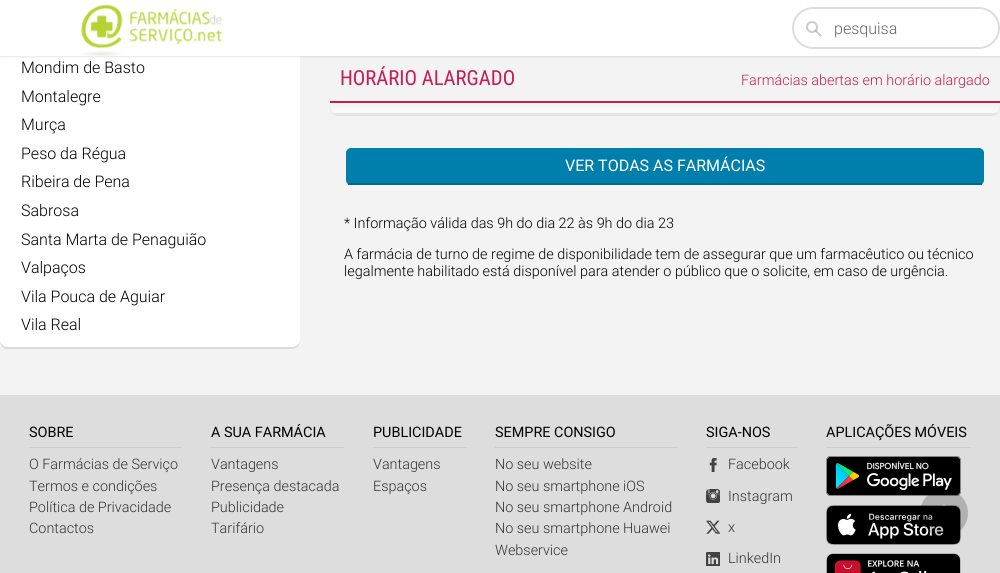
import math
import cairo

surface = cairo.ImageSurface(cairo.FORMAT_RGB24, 1000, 573)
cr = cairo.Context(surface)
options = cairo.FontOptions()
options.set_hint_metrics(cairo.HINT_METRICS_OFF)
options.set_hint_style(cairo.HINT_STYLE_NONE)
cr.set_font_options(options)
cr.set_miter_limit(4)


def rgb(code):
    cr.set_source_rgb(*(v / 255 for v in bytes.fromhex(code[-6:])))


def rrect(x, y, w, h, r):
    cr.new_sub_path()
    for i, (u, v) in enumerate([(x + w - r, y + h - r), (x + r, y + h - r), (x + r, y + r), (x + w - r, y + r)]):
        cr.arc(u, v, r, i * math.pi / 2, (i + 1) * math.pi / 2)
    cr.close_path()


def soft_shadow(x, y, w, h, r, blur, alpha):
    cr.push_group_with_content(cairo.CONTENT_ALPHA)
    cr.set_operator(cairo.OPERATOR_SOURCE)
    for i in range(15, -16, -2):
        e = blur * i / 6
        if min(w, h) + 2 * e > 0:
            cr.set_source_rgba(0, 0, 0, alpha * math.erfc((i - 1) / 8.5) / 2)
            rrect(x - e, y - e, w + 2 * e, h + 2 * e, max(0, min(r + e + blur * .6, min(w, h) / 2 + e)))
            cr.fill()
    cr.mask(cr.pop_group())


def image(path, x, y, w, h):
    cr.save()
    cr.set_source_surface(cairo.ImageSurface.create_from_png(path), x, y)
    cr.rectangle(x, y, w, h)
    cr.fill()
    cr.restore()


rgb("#f3f3f3")
cr.paint()
rgb("#dbdbdb")
cr.new_path()
cr.move_to(0, 339)
cr.curve_to(0, 343, 1, 348, 6, 349)
cr.line_to(292, 349)
cr.curve_to(298, 349, 300, 344, 300, 339)
cr.curve_to(300, 343, 296, 347, 292, 347)
cr.line_to(8, 347)
cr.curve_to(4, 347, 0, 343, 0, 339)
cr.close_path()
cr.fill()
rgb("#ffffff")
cr.new_path()
cr.move_to(0, -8)
cr.line_to(300, -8)
cr.line_to(300, 339)
cr.curve_to(300, 343.5, 296.5, 347, 292, 347)
cr.line_to(8, 347)
cr.curve_to(3.5, 347, 0, 343.5, 0, 339)
cr.close_path()
cr.fill()
rgb("#000000")
soft_shadow(0, 0, 1000, 56, 0, 1.5, 0.2)
rgb("#ffffff")
cr.rectangle(0, 0, 1000, 56)
cr.fill()
image("img/1.png", 81, 4, 141, 52)
rrect(793, 8, 206, 40, 20)
rgb("#dddddd")
cr.stroke()
image("img/2.png", 806, 21, 16, 16)
rgb("#ffffff")
cr.new_path()
cr.move_to(338, 63)
cr.line_to(992, 63)
cr.curve_to(996, 63, 999, 66, 999, 70)
cr.line_to(999, 108)
cr.curve_to(999, 111, 996, 113, 992, 113)
cr.line_to(338, 113)
cr.curve_to(334, 113, 331, 111, 331, 108)
cr.line_to(331, 70)
cr.curve_to(331, 66, 334, 63, 338, 63)
cr.close_path()
cr.fill()
rrect(330.5, 62.5, 669, 53, 7.5)
rgb("#dfdfdf")
cr.set_line_width(1)
cr.stroke()
for x, y, w, h, color in [
    (334, 113, 662, 2, "#dfdfdf"),
    (330, 62, 670, 39, "#f3f3f3"),
    (330, 101, 670, 2, "#c51c57"),
]:
    rgb(color)
    cr.rectangle(x, y, w, h)
    cr.fill()
gradient = cairo.LinearGradient(665, 103, 665, 118)
gradient.add_color_stop_rgba(0, 0.953, 0.953, 0.953, 1)
gradient.add_color_stop_rgba(1, 0.953, 0.953, 0.953, 0)
cr.set_source(gradient)
cr.rectangle(330, 103, 670, 13)
cr.fill()
rgb("#007fad")
rrect(346, 148, 638, 37, 5)
cr.fill()
for x, y, w, h, color in [
    (348, 183, 634, 2, "#00678c"),
    (0, 395, 1000, 178, "#dddddd"),
    (29, 447, 153, 1, "#cccccc"),
    (211, 447, 133, 1, "#cccccc"),
    (373, 447, 94, 1, "#cccccc"),
    (495, 447, 182, 1, "#cccccc"),
    (706, 447, 91, 1, "#cccccc"),
]:
    rgb(color)
    cr.rectangle(x, y, w, h)
    cr.fill()
image("img/3.png", 709, 458, 8, 14)
image("img/4.png", 706, 489, 14, 14)
image("img/5.png", 706, 520, 14, 14)
image("img/6.png", 706, 552, 14, 14)
cr.rectangle(826, 447, 145, 1)
cr.fill()
image("img/7.png", 826, 456, 135, 40)
image("img/8.png", 826, 505, 135, 40)
image("img/9.png", 826, 553, 135, 20)
image("img/10.png", 921, 489, 47, 47)
cr.select_font_face("Roboto Light")
cr.set_font_size(16)
rgb("#666666")
cr.move_to(834, 34)
cr.show_text("pesquisa")
rgb("#000000")
for x, y, s in [
    (21, 73, "Mondim de Basto"),
    (21, 102, "Montalegre"),
    (21, 130, "Murça"),
    (21, 159, "Peso da Régua"),
    (21, 187, "Ribeira de Pena"),
    (21, 216, "Sabrosa"),
    (21, 245, "Santa Marta de Penaguião"),
    (21, 273, "Valpaços"),
    (21, 302, "Vila Pouca de Aguiar"),
    (21, 330, "Vila Real"),
]:
    cr.move_to(x, y)
    cr.show_text(s)
cr.select_font_face("Roboto Condensed")
cr.set_font_size(20.75)
rgb("#c51c57")
cr.move_to(340, 85)
cr.show_text("HORÁRIO ALARGADO")
cr.select_font_face("Roboto Light")
cr.set_font_size(14.4)
cr.move_to(741, 85)
cr.show_text("Farmácias abertas em horário alargado")
cr.select_font_face("Roboto")
cr.set_font_size(16)
rgb("#ffffff")
cr.move_to(565, 171)
cr.show_text("VER TODAS AS FARMÁCIAS")
cr.select_font_face("Roboto Light")
cr.set_font_size(14.4)
rgb("#000000")
for x, y, s in [
    (344, 228, "* Informação válida das 9h do dia 22 às 9h do dia 23"),
    (344, 259, "A farmácia de turno de regime de disponibilidade tem de assegurar que um farmacêutico ou técnico"),
    (344, 276, "legalmente habilitado está disponível para atender o público que o solicite, em caso de urgência."),
]:
    cr.move_to(x, y)
    cr.show_text(s)
cr.select_font_face("Roboto")
cr.move_to(29, 437)
cr.show_text("SOBRE")
cr.select_font_face("Roboto Light")
rgb("#333333")
for x, y, s in [
    (29, 469, "O Farmácias de Serviço"),
    (29, 491, "Termos e condições"),
    (29, 512, "Política de Privacidade"),
    (29, 533, "Contactos"),
]:
    cr.move_to(x, y)
    cr.show_text(s)
cr.select_font_face("Roboto")
rgb("#000000")
cr.move_to(211, 437)
cr.show_text("A SUA FARMÁCIA")
cr.select_font_face("Roboto Light")
rgb("#333333")
for x, y, s in [
    (211, 469, "Vantagens"),
    (211, 491, "Presença destacada"),
    (211, 512, "Publicidade"),
    (211, 533, "Tarifário"),
]:
    cr.move_to(x, y)
    cr.show_text(s)
cr.select_font_face("Roboto")
rgb("#000000")
cr.move_to(373, 437)
cr.show_text("PUBLICIDADE")
cr.select_font_face("Roboto Light")
rgb("#333333")
cr.move_to(373, 469)
cr.show_text("Vantagens")
cr.move_to(373, 491)
cr.show_text("Espaços")
cr.select_font_face("Roboto")
rgb("#000000")
cr.move_to(495, 437)
cr.show_text("SEMPRE CONSIGO")
cr.select_font_face("Roboto Light")
rgb("#333333")
for x, y, s in [
    (495, 469, "No seu website"),
    (495, 491, "No seu smartphone iOS"),
    (495, 512, "No seu smartphone Android"),
    (495, 533, "No seu smartphone Huawei"),
    (495, 555, "Webservice"),
]:
    cr.move_to(x, y)
    cr.show_text(s)
cr.select_font_face("Roboto")
rgb("#000000")
cr.move_to(706, 437)
cr.show_text("SIGA-NOS")
cr.select_font_face("Roboto Light")
rgb("#333333")
for x, y, s in [
    (728, 469, "Facebook"),
    (728, 501, "Instagram"),
    (728, 532, "x"),
    (728, 563, "LinkedIn"),
]:
    cr.move_to(x, y)
    cr.show_text(s)
cr.select_font_face("Roboto")
rgb("#000000")
cr.move_to(826, 437)
cr.show_text("APLICAÇÕES MÓVEIS")
surface.write_to_png("page.png")
